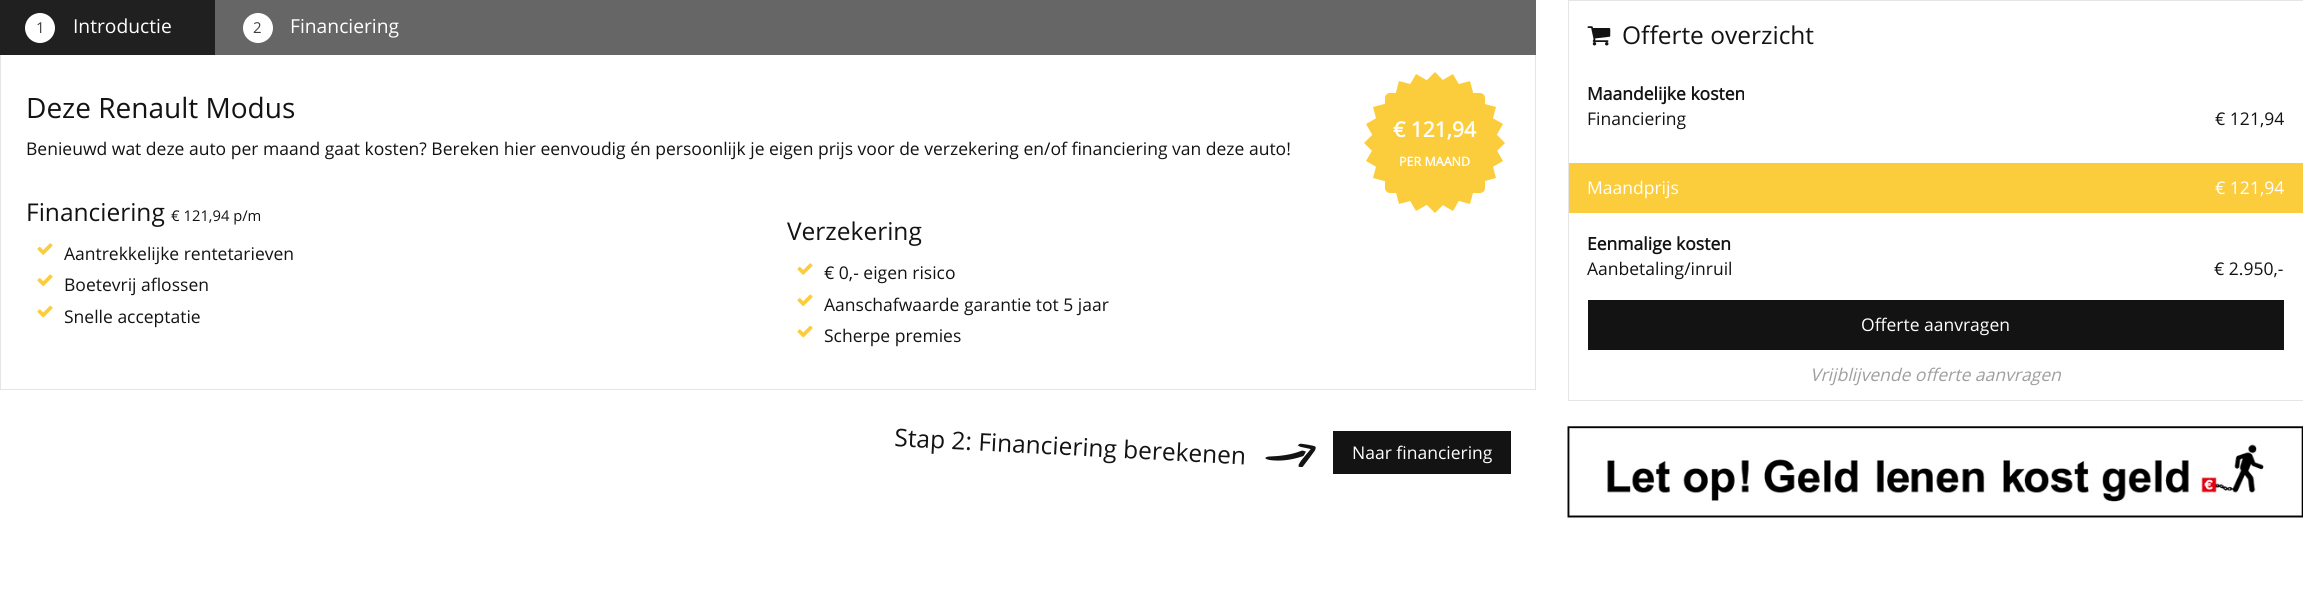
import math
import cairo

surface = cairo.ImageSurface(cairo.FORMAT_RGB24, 2303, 610)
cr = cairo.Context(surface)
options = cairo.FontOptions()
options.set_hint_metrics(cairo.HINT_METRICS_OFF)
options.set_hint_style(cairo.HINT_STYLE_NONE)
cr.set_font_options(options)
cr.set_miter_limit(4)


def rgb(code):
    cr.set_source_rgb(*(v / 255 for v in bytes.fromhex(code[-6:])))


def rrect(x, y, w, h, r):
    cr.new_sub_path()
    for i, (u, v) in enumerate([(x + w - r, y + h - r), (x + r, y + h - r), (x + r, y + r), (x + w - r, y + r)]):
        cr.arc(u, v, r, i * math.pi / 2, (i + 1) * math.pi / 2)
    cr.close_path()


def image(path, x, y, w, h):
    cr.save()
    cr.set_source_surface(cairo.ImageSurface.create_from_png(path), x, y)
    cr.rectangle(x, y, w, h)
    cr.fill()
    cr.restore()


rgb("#ffffff")
cr.paint()
rgb("#666666")
cr.rectangle(215, 0, 1321, 55)
cr.fill()
rgb("#202020")
cr.rectangle(0, 0, 215, 55)
cr.fill()
rgb("#ffffff")
cr.arc(40, 28, 15, 0, 2 * math.pi)
cr.fill()
cr.arc(258, 28, 15, 0, 2 * math.pi)
cr.fill()
for x, y, w, h, color in [
    (1535, 55, 1, 335, "#e5e5e5"),
    (0, 389, 1536, 1, "#e5e5e5"),
    (0, 55, 1, 335, "#e5e5e5"),
]:
    rgb(color)
    cr.rectangle(x, y, w, h)
    cr.fill()
rgb("#fbcd3d")
cr.new_path()
cr.move_to(1364, 143)
cr.line_to(1435, 72)
cr.line_to(1505, 143)
cr.line_to(1435, 213)
cr.close_path()
cr.fill()
cr.new_path()
cr.move_to(1373, 178)
cr.line_to(1399, 81)
cr.line_to(1496, 107)
cr.line_to(1470, 204)
cr.close_path()
cr.fill()
cr.new_path()
cr.move_to(1366, 161)
cr.line_to(1416, 74)
cr.line_to(1503, 124)
cr.line_to(1453, 211)
cr.close_path()
cr.fill()
rrect(1385, 93, 100, 100, 5)
cr.fill()
cr.new_path()
cr.move_to(1453, 74)
cr.line_to(1503, 161)
cr.line_to(1416, 211)
cr.line_to(1366, 124)
cr.close_path()
cr.fill()
cr.new_path()
cr.move_to(1470, 81)
cr.line_to(1496, 178)
cr.line_to(1399, 204)
cr.line_to(1373, 107)
cr.close_path()
cr.fill()
image("img/1.png", 37, 243, 16, 12)
image("img/2.png", 37, 274, 16, 13)
image("img/3.png", 37, 305, 16, 13)
image("img/1.png", 797, 263, 16, 12)
image("img/2.png", 797, 294, 16, 13)
image("img/3.png", 797, 325, 16, 13)
image("img/4.png", 1265, 443, 51, 24)
rgb("#131313")
cr.rectangle(1333, 431, 178, 43)
cr.fill()
cr.rectangle(1568.5, 0.5, 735, 400)
rgb("#e5e5e5")
cr.set_line_width(1)
cr.stroke()
image("img/5.png", 1587, 26, 24, 20)
rgb("#fbcd3d")
cr.rectangle(1569, 163, 734, 50)
cr.fill()
rgb("#131313")
cr.rectangle(1588, 300, 696, 50)
cr.fill()
image("img/6.png", 1567, 426, 736, 92)
cr.select_font_face("Open Sans")
cr.set_font_size(15)
rgb("#3f3f3f")
cr.move_to(36, 33)
cr.show_text("1")
cr.set_font_size(19.25)
rgb("#ffffff")
cr.move_to(73, 33)
cr.show_text("Introductie")
cr.set_font_size(15)
rgb("#3f3f3f")
cr.move_to(253, 33)
cr.show_text("2")
cr.set_font_size(19.25)
rgb("#ffffff")
cr.move_to(290, 33)
cr.show_text("Financiering")
cr.set_font_size(28)
rgb("#131313")
cr.move_to(26, 118)
cr.show_text("Deze Renault Modus")
cr.select_font_face("Open Sans", cairo.FONT_SLANT_NORMAL, cairo.FONT_WEIGHT_BOLD)
cr.set_font_size(21)
rgb("#ffffff")
cr.move_to(1393, 137)
cr.show_text("€ 121,94")
cr.set_font_size(12.5)
cr.move_to(1399, 166)
cr.show_text("PER MAAND")
cr.select_font_face("Open Sans")
cr.set_font_size(17.5)
rgb("#131313")
cr.move_to(26, 155)
cr.show_text("Benieuwd wat deze auto per maand gaat kosten? Bereken hier eenvoudig én persoonlijk je eigen prijs voor de verzekering en/of financiering van deze auto!")
cr.set_font_size(24.5)
cr.move_to(26, 221)
cr.show_text("Financiering")
cr.set_font_size(14.75)
cr.move_to(171, 221)
cr.show_text("€ 121,94 p/m")
cr.set_font_size(17.5)
for x, y, s in [
    (64, 260, "Aantrekkelijke rentetarieven"),
    (64, 291, "Boetevrij aflossen"),
    (64, 323, "Snelle acceptatie"),
]:
    cr.move_to(x, y)
    cr.show_text(s)
cr.set_font_size(24.5)
cr.move_to(787, 240)
cr.show_text("Verzekering")
cr.set_font_size(17.5)
for x, y, s in [
    (824, 279, "€ 0,- eigen risico"),
    (824, 311, "Aanschafwaarde garantie tot 5 jaar"),
    (824, 342, "Scherpe premies"),
]:
    cr.move_to(x, y)
    cr.show_text(s)
cr.set_font_size(24.5)
cr.save()
cr.translate(894, 446)
cr.rotate(3 * math.pi / 180)
cr.move_to(0, 0)
cr.show_text("Stap 2: Financiering berekenen")
cr.restore()
cr.set_font_size(17.5)
rgb("#ffffff")
cr.move_to(1352, 459)
cr.show_text("Naar financiering")
cr.set_font_size(24.5)
rgb("#131313")
cr.move_to(1622, 44)
cr.show_text("Offerte overzicht")
cr.select_font_face("Open Sans", cairo.FONT_SLANT_NORMAL, cairo.FONT_WEIGHT_BOLD)
cr.set_font_size(17.5)
cr.move_to(1587, 100)
cr.show_text("Maandelijke kosten")
cr.select_font_face("Open Sans")
cr.move_to(1587, 125)
cr.show_text("Financiering")
cr.move_to(2215, 125)
cr.show_text("€ 121,94")
rgb("#ffffff")
cr.move_to(1587, 194)
cr.show_text("Maandprijs")
cr.move_to(2215, 194)
cr.show_text("€ 121,94")
cr.select_font_face("Open Sans", cairo.FONT_SLANT_NORMAL, cairo.FONT_WEIGHT_BOLD)
rgb("#131313")
cr.move_to(1587, 250)
cr.show_text("Eenmalige kosten")
cr.select_font_face("Open Sans")
cr.move_to(1587, 275)
cr.show_text("Aanbetaling/inruil")
cr.move_to(2214, 275)
cr.show_text("€ 2.950,-")
rgb("#ffffff")
cr.move_to(1861, 331)
cr.show_text("Offerte aanvragen")
cr.select_font_face("Open Sans", cairo.FONT_SLANT_ITALIC)
rgb("#a09f9f")
cr.move_to(1810, 381)
cr.show_text("Vrijblijvende offerte aanvragen")
surface.write_to_png("page.png")
